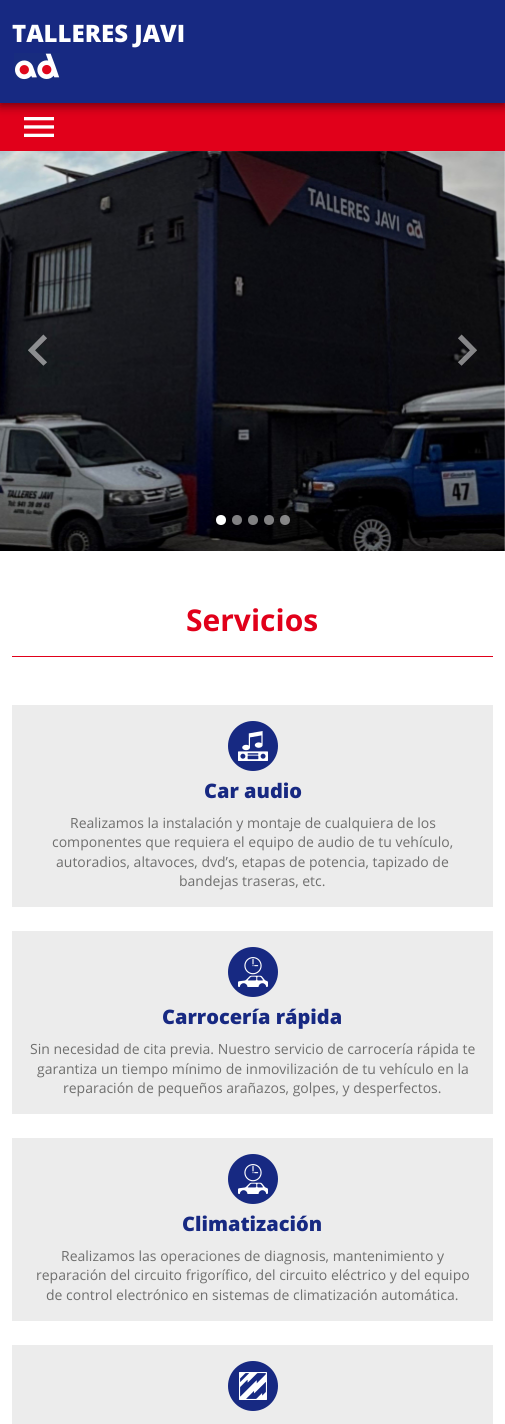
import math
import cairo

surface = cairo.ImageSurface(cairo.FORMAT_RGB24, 505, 1424)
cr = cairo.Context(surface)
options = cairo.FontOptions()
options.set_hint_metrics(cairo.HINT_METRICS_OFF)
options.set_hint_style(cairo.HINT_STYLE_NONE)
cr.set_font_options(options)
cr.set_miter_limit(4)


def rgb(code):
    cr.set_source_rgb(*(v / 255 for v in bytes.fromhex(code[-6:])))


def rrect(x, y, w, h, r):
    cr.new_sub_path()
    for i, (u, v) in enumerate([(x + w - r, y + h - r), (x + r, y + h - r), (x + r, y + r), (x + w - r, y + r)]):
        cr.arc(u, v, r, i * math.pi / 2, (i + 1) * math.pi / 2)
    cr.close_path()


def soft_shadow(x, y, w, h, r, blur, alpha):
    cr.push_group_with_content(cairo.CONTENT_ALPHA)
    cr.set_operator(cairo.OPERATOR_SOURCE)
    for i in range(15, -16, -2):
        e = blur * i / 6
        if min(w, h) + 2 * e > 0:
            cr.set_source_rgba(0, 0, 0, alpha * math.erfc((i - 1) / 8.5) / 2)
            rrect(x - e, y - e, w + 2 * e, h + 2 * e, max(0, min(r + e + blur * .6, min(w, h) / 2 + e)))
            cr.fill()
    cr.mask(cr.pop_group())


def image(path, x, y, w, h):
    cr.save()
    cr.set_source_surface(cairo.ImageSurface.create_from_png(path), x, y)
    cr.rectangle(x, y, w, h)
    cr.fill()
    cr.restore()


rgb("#ffffff")
cr.paint()
rgb("#e1001a")
cr.rectangle(0, 103, 505, 48)
cr.fill()
image("img/2.png", 24, 117, 30, 20)
rgb("#000000")
soft_shadow(0, 3, 505, 103, 0, 5, 0.5)
rgb("#172982")
cr.rectangle(0, 0, 505, 103)
cr.fill()
image("img/1.png", 14, 53, 46, 27)
image("img/3.png", 0, 151, 505, 400)
image("img/4.png", 28, 334, 19, 32)
image("img/5.png", 458, 334, 19, 32)
rgb("#ffffff")
cr.arc(221, 520, 5, 0, 2 * math.pi)
cr.fill()
cr.set_source_rgba(1, 1, 1, 0.5)
cr.arc(237, 520, 5, 0, 2 * math.pi)
cr.fill()
cr.arc(253, 520, 5, 0, 2 * math.pi)
cr.fill()
cr.arc(269, 520, 5, 0, 2 * math.pi)
cr.fill()
cr.arc(285, 520, 5, 0, 2 * math.pi)
cr.fill()
rgb("#e1001a")
cr.rectangle(12, 656, 481, 1)
cr.fill()
rgb("#ececec")
cr.rectangle(12, 705, 481, 202)
cr.fill()
rgb("#172982")
cr.arc(253, 746, 25, 0, 2 * math.pi)
cr.fill()
image("img/6.png", 238, 731, 30, 30)
rgb("#ececec")
cr.rectangle(12, 931, 481, 183)
cr.fill()
rgb("#172982")
cr.arc(253, 972, 25, 0, 2 * math.pi)
cr.fill()
image("img/7.png", 238, 957, 30, 30)
rgb("#ececec")
cr.rectangle(12, 1138, 481, 183)
cr.fill()
rgb("#172982")
cr.arc(253, 1179, 25, 0, 2 * math.pi)
cr.fill()
image("img/7.png", 238, 1164, 30, 30)
rgb("#ececec")
cr.rectangle(12, 1345, 481, 79)
cr.fill()
rgb("#172982")
cr.arc(253, 1386, 25, 0, 2 * math.pi)
cr.fill()
image("img/8.png", 239, 1372, 28, 28)
cr.select_font_face("Open Sans ExtraBold")
cr.set_font_size(24)
rgb("#ffffff")
cr.move_to(12, 42)
cr.show_text("TALLERES JAVI")
cr.select_font_face("Open Sans", cairo.FONT_SLANT_NORMAL, cairo.FONT_WEIGHT_BOLD)
cr.set_font_size(30)
rgb("#e1001a")
cr.move_to(186, 631)
cr.show_text("Servicios")
cr.select_font_face("Open Sans ExtraBold")
cr.set_font_size(20)
rgb("#172982")
cr.move_to(204, 798)
cr.show_text("Car audio")
cr.select_font_face("Open Sans")
cr.set_font_size(14)
rgb("#6f6f6e")
for x, y, s in [
    (70, 828, "Realizamos la instalación y montaje de cualquiera de los"),
    (52, 847, "componentes que requiera el equipo de audio de tu vehículo,"),
    (56, 867, "autoradios, altavoces, dvd’s, etapas de potencia, tapizado de"),
    (179, 886, "bandejas traseras, etc."),
]:
    cr.move_to(x, y)
    cr.show_text(s)
cr.select_font_face("Open Sans ExtraBold")
cr.set_font_size(20)
rgb("#172982")
cr.move_to(162, 1024)
cr.show_text("Carrocería rápida")
cr.select_font_face("Open Sans")
cr.set_font_size(14)
rgb("#6f6f6e")
for x, y, s in [
    (30, 1054, "Sin necesidad de cita previa. Nuestro servicio de carrocería rápida te"),
    (37, 1074, "garantiza un tiempo mínimo de inmovilización de tu vehículo en la"),
    (63, 1093, "reparación de pequeños arañazos, golpes, y desperfectos."),
]:
    cr.move_to(x, y)
    cr.show_text(s)
cr.select_font_face("Open Sans ExtraBold")
cr.set_font_size(20)
rgb("#172982")
cr.move_to(182, 1231)
cr.show_text("Climatización")
cr.select_font_face("Open Sans")
cr.set_font_size(14)
rgb("#6f6f6e")
for x, y, s in [
    (61, 1261, "Realizamos las operaciones de diagnosis, mantenimiento y"),
    (36, 1280, "reparación del circuito frigorífico, del circuito eléctrico y del equipo"),
    (46, 1300, "de control electrónico en sistemas de climatización automática."),
]:
    cr.move_to(x, y)
    cr.show_text(s)
surface.write_to_png("page.png")
